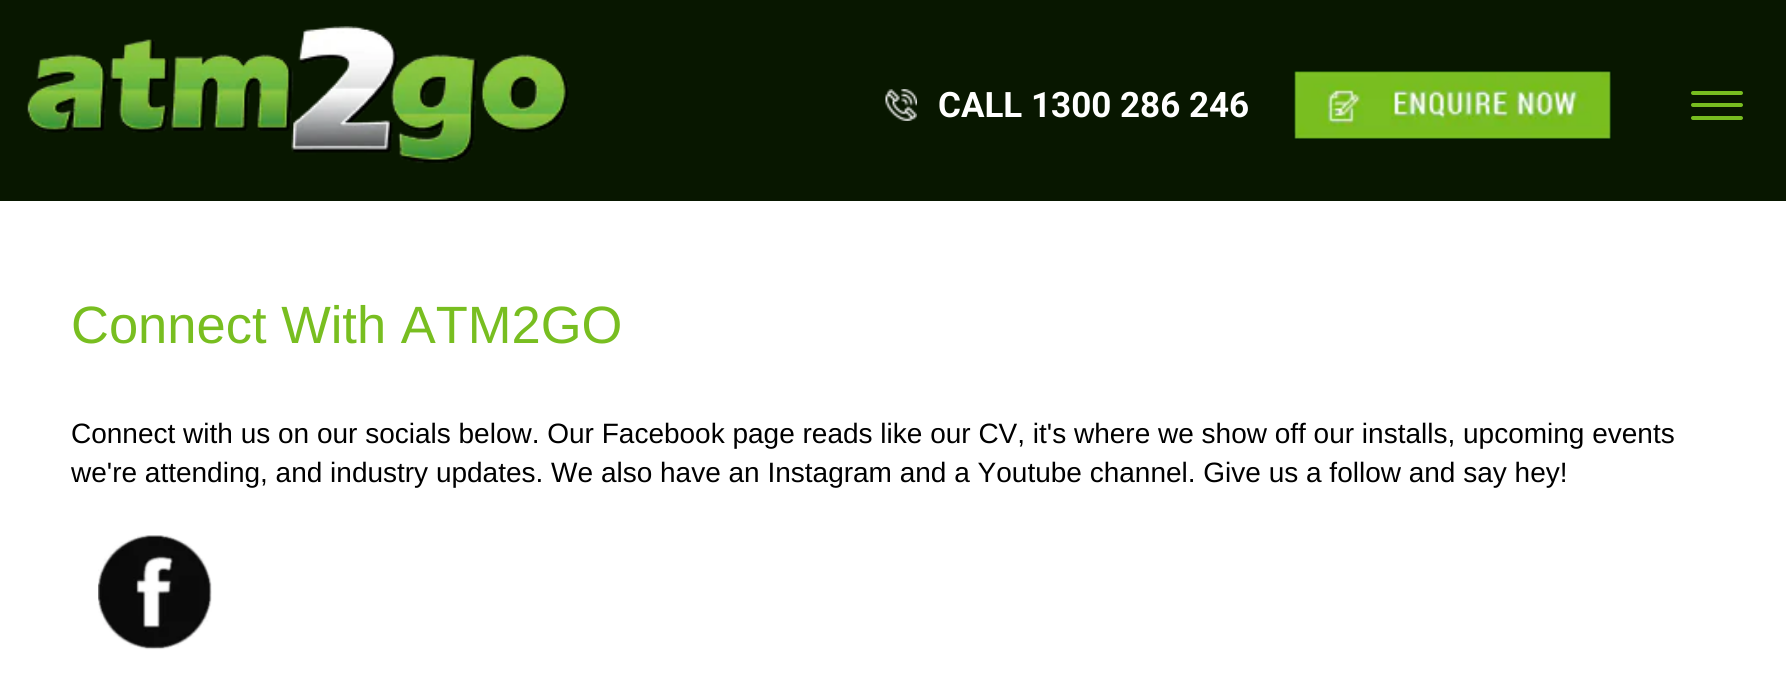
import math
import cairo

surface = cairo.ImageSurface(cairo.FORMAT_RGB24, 1786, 673)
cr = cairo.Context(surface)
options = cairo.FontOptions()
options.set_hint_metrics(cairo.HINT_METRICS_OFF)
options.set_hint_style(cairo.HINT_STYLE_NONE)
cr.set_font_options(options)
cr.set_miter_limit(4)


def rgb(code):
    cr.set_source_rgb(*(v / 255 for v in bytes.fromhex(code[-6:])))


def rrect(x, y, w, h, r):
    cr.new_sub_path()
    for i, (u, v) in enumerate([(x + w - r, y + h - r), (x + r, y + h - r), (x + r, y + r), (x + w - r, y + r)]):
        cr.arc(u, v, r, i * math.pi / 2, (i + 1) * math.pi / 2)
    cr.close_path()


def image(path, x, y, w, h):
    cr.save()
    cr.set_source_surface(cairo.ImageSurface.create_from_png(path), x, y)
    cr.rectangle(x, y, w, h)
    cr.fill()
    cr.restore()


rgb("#ffffff")
cr.paint()
rgb("#081700")
cr.rectangle(0, 0, 1786, 201)
cr.fill()
image("img/1.png", 27, 26, 542, 138)
image("img/2.png", 885, 89, 32, 32)
image("img/3.png", 1293, 70, 319, 70)
rgb("#78be20")
rrect(1691, 91, 52, 4, 2)
cr.fill()
rrect(1691, 103, 52, 4, 2)
cr.fill()
rrect(1691, 116, 52, 4, 2)
cr.fill()
image("img/4.png", 98, 535, 114, 115)
cr.select_font_face("Roboto", cairo.FONT_SLANT_NORMAL, cairo.FONT_WEIGHT_BOLD)
cr.set_font_size(35)
rgb("#ffffff")
cr.move_to(938, 117)
cr.show_text("CALL 1300 286 246")
cr.select_font_face("Liberation Sans")
cr.set_font_size(52.5)
rgb("#78be20")
cr.move_to(71, 343)
cr.show_text("Connect With ATM2GO")
cr.set_font_size(28)
rgb("#000000")
cr.move_to(71, 443)
cr.show_text("Connect with us on our socials below. Our Facebook page reads like our CV, it's where we show off our installs, upcoming events")
cr.move_to(71, 482)
cr.show_text("we're attending, and industry updates. We also have an Instagram and a Youtube channel. Give us a follow and say hey!")
surface.write_to_png("page.png")
